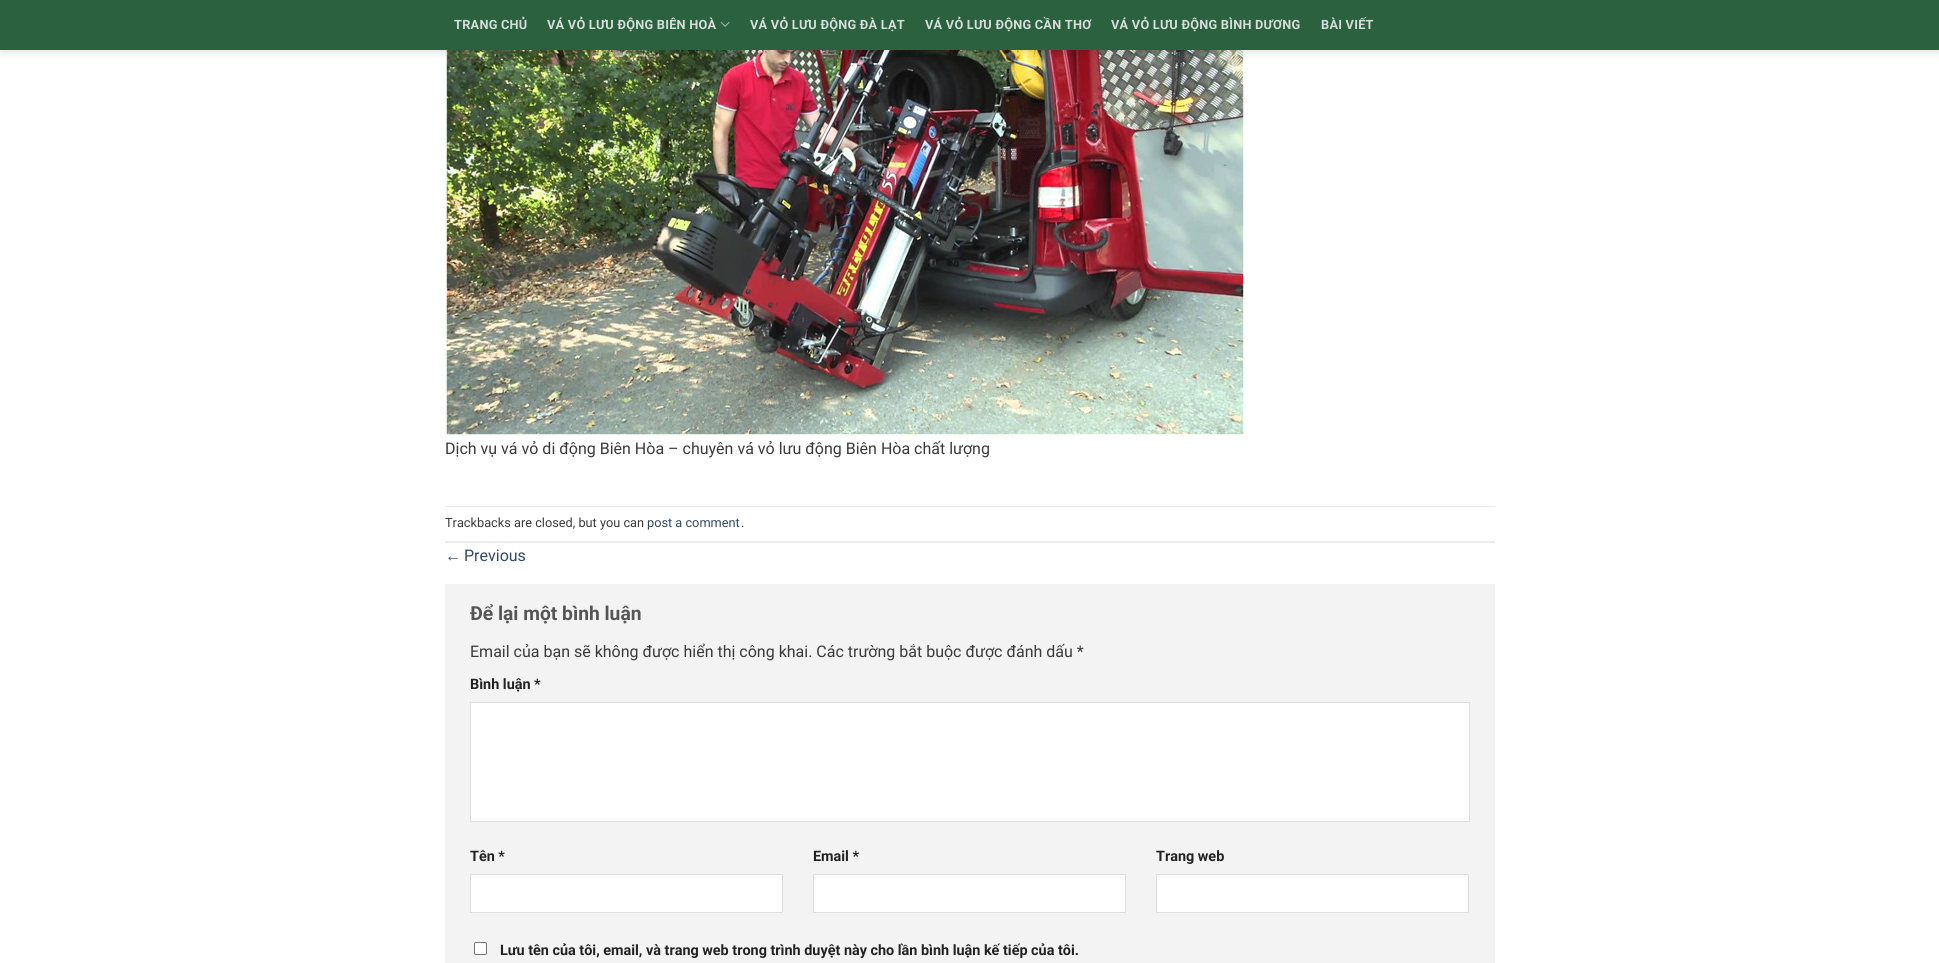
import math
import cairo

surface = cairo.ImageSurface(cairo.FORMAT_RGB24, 1939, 963)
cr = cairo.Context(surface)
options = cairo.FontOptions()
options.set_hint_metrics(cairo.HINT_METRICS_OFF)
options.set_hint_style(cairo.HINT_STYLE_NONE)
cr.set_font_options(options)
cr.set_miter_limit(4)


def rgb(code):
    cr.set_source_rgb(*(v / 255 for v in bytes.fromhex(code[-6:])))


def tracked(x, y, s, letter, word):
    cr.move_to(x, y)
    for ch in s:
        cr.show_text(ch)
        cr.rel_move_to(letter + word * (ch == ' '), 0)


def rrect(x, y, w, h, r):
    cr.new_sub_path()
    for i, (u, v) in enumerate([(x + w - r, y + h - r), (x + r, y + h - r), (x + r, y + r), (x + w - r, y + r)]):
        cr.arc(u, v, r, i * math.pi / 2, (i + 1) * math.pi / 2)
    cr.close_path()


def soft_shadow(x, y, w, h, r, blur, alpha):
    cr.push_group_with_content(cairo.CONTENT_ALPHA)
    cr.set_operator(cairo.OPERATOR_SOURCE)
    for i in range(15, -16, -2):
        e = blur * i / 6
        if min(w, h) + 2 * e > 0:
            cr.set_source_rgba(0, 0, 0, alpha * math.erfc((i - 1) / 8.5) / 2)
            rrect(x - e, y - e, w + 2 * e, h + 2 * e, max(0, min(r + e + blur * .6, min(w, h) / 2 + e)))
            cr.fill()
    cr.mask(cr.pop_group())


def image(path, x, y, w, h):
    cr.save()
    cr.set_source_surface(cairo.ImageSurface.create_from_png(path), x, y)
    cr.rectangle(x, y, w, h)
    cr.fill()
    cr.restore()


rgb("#ffffff")
cr.paint()
image("img/2.png", 445, 50, 800, 386)
rgb("#000000")
soft_shadow(1, 1, 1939, 50, 0, 5, 0.15)
rgb("#2c6140")
cr.rectangle(0, 0, 1939, 50)
cr.fill()
image("img/1.png", 720, 21, 10, 6)
for x, y, w, h, color in [
    (445, 506, 1050, 1, "#ececec"),
    (445, 541, 1050, 2, "#ececec"),
    (445, 584, 1050, 379, "#f3f3f3"),
]:
    rgb(color)
    cr.rectangle(x, y, w, h)
    cr.fill()
rgb("#ffffff")
cr.rectangle(470.5, 702.5, 999, 119)
cr.fill_preserve()
rgb("#dddddd")
cr.set_line_width(1)
cr.stroke()
rgb("#ffffff")
cr.rectangle(470.5, 874.5, 312, 38)
cr.fill_preserve()
rgb("#dddddd")
cr.stroke()
rgb("#ffffff")
cr.rectangle(813.5, 874.5, 312, 38)
cr.fill_preserve()
rgb("#dddddd")
cr.stroke()
rgb("#ffffff")
cr.rectangle(1156.5, 874.5, 312, 38)
cr.fill_preserve()
rgb("#dddddd")
cr.stroke()
rgb("#ffffff")
rrect(474.5, 942.5, 12, 12, 1.5)
cr.fill_preserve()
rgb("#767676")
cr.stroke()
cr.select_font_face("Roboto", cairo.FONT_SLANT_NORMAL, cairo.FONT_WEIGHT_BOLD)
cr.set_font_size(12.75)
rgb("#d5dfd9")
for x, y, s in [
    (454, 29, "TRANG CHỦ"),
    (547, 29, "VÁ VỎ LƯU ĐỘNG BIÊN HOÀ"),
    (750, 29, "VÁ VỎ LƯU ĐỘNG ĐÀ LẠT"),
    (925, 29, "VÁ VỎ LƯU ĐỘNG CẦN THƠ"),
    (1111, 29, "VÁ VỎ LƯU ĐỘNG BÌNH DƯƠNG"),
    (1321, 29, "BÀI VIẾT"),
]:
    tracked(x, y, s, 0.25, 0)
cr.select_font_face("Roboto")
cr.set_font_size(16)
rgb("#3a3a3a")
cr.move_to(445, 454)
cr.show_text("Dịch vụ vá vỏ di động Biên Hòa – chuyên vá vỏ lưu động Biên Hòa chất lượng")
cr.set_font_size(12.75)
cr.move_to(445, 527)
cr.show_text("Trackbacks are closed, but you can")
rgb("#334862")
cr.move_to(647, 527)
cr.show_text("post a comment")
rgb("#3a3a3a")
cr.move_to(741, 527)
cr.show_text(".")
cr.select_font_face("Liberation Sans")
cr.set_font_size(16)
rgb("#334862")
cr.move_to(445, 561)
cr.show_text("←")
cr.select_font_face("Roboto")
cr.move_to(464, 561)
cr.show_text("Previous")
cr.select_font_face("Roboto", cairo.FONT_SLANT_NORMAL, cairo.FONT_WEIGHT_BOLD)
cr.set_font_size(19.25)
rgb("#555555")
cr.move_to(470, 620)
cr.show_text("Để lại một bình luận")
cr.select_font_face("Roboto")
cr.set_font_size(16)
rgb("#3a3a3a")
cr.move_to(470, 657)
cr.show_text("Email của bạn sẽ không được hiển thị công khai. Các trường bắt buộc được đánh dấu *")
cr.select_font_face("Roboto", cairo.FONT_SLANT_NORMAL, cairo.FONT_WEIGHT_BOLD)
cr.set_font_size(14.4)
rgb("#222222")
for x, y, s in [
    (470, 689, "Bình luận *"),
    (470, 861, "Tên *"),
    (813, 861, "Email *"),
    (1156, 861, "Trang web"),
    (500, 955, "Lưu tên của tôi, email, và trang web trong trình duyệt này cho lần bình luận kế tiếp của tôi."),
]:
    cr.move_to(x, y)
    cr.show_text(s)
surface.write_to_png("page.png")
